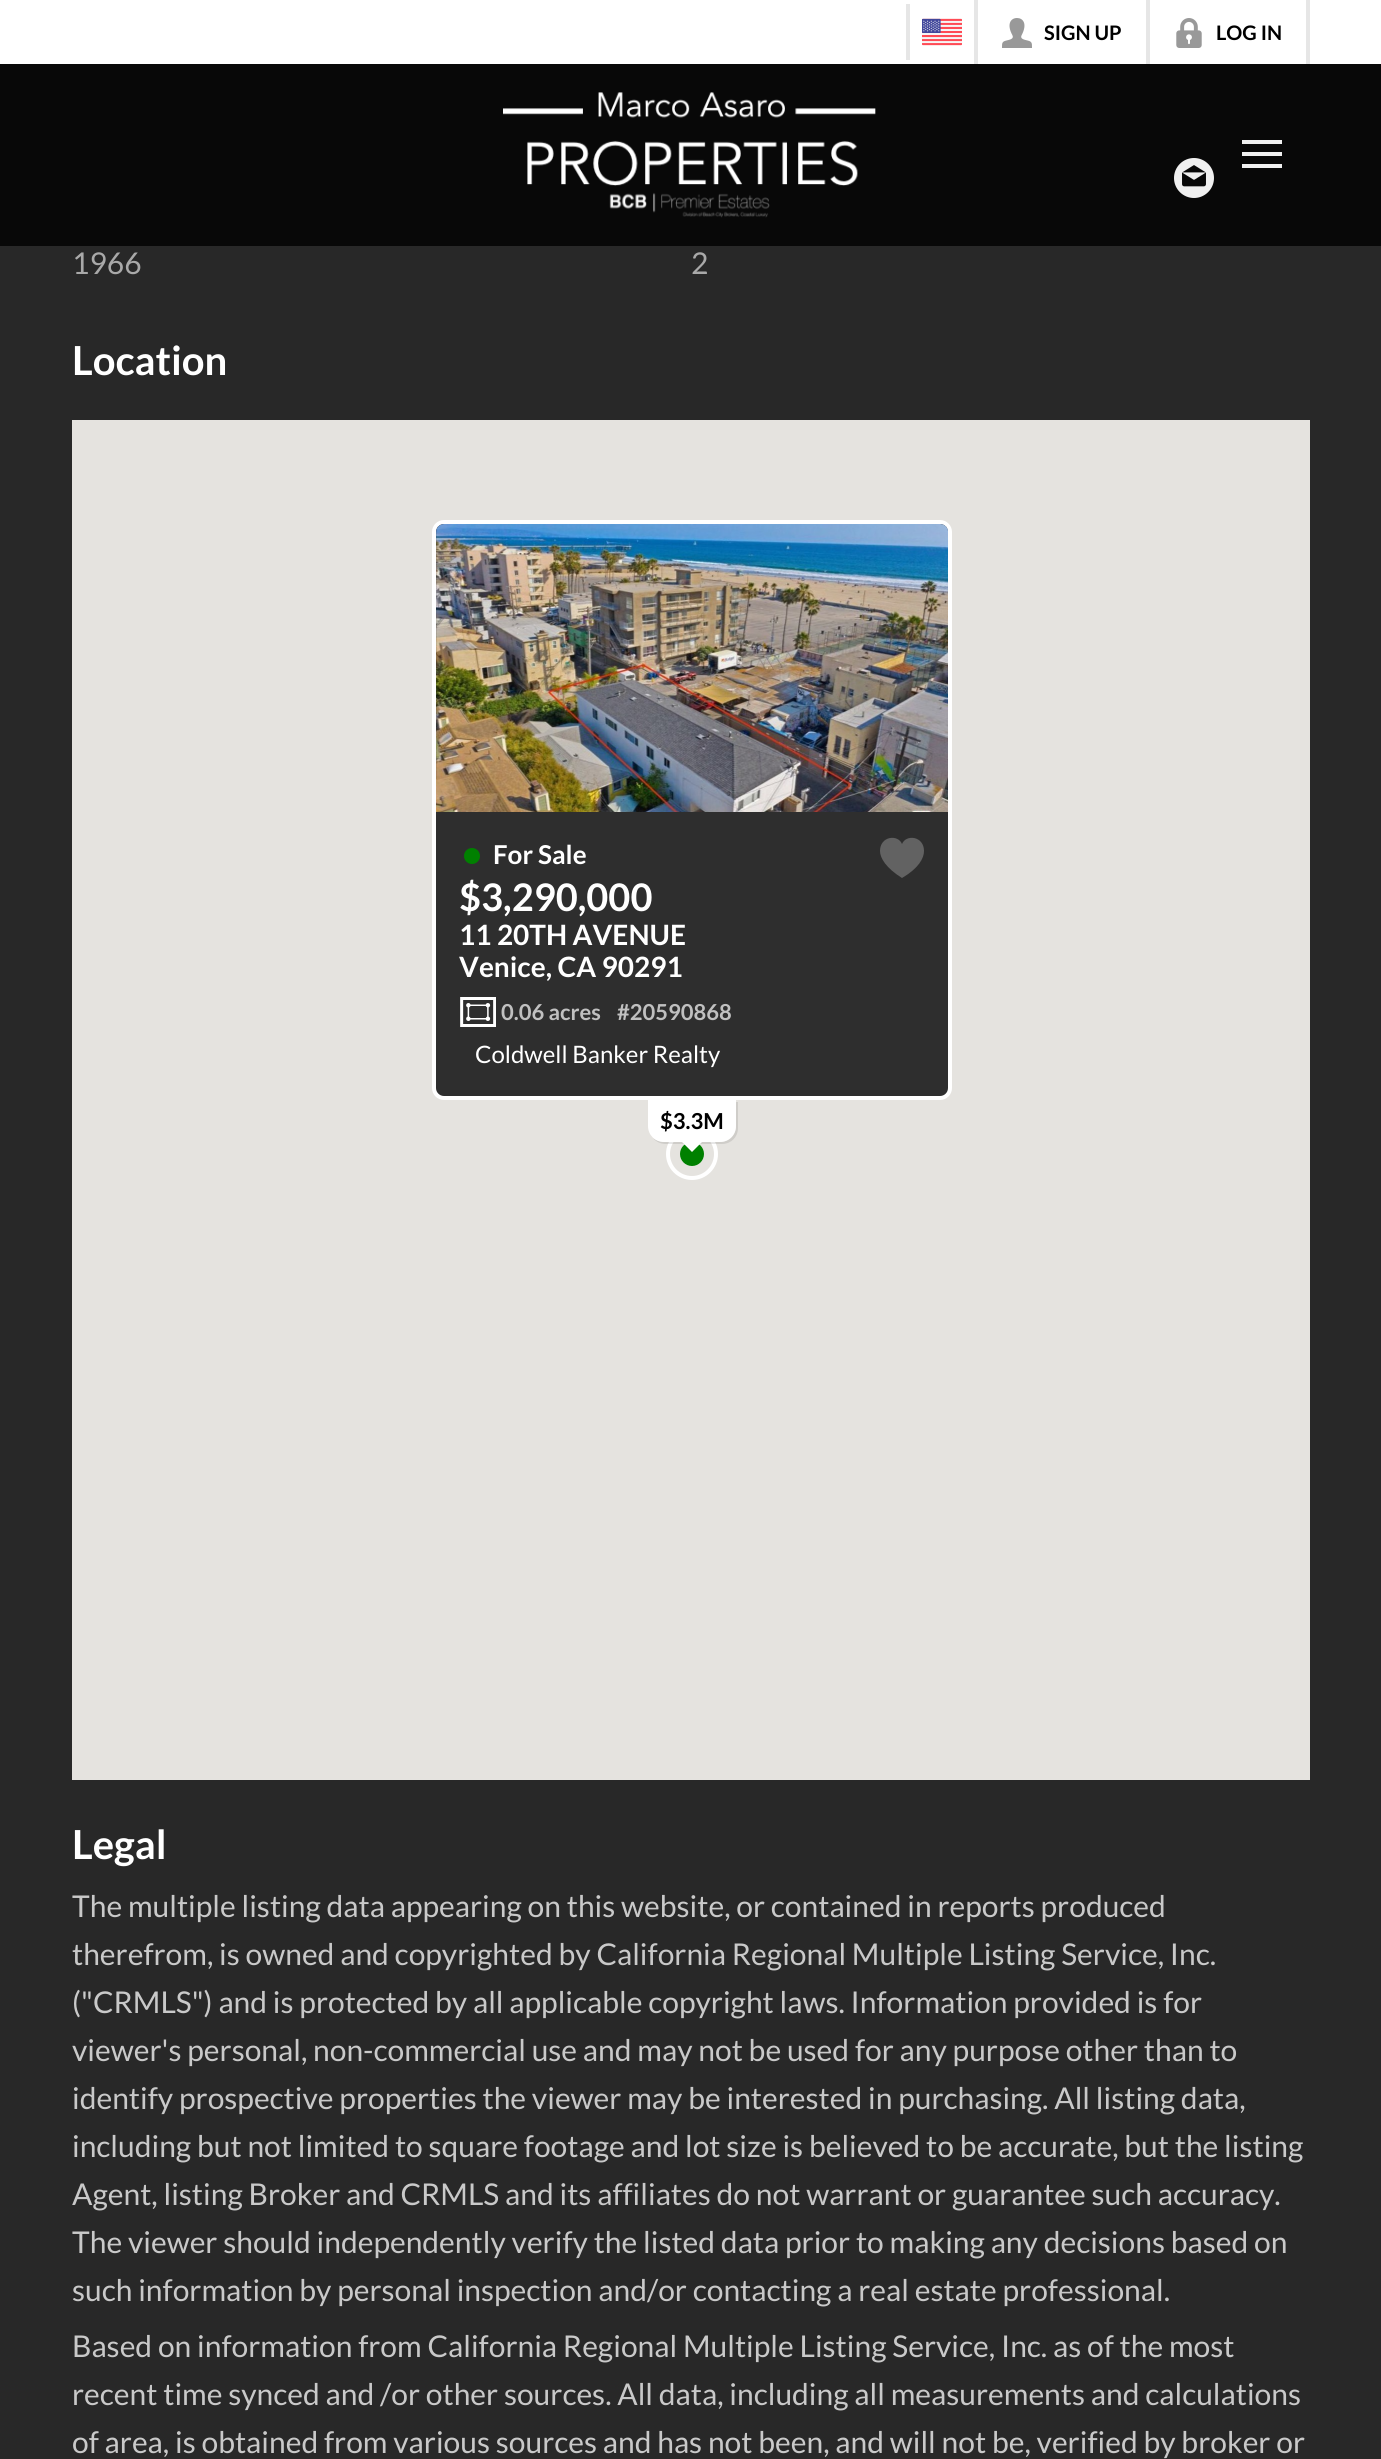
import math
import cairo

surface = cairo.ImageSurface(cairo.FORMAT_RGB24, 1381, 2459)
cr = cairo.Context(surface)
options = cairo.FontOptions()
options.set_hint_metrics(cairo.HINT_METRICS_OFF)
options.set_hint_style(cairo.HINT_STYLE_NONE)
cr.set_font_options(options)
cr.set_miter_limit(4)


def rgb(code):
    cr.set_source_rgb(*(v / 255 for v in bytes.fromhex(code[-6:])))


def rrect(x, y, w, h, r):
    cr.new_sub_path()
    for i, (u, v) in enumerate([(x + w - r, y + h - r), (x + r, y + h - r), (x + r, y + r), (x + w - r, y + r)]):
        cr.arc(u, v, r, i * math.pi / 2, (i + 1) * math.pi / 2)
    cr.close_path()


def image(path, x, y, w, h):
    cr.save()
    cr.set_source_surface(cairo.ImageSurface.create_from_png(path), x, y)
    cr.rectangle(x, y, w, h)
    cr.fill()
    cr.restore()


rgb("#282828")
cr.paint()
rgb("#ffffff")
cr.rectangle(0, 0, 1381, 64)
cr.fill()
rgb("#e6e6e6")
cr.rectangle(906, 4, 4, 56)
cr.fill()
image("img/1.png", 922, 18, 40, 28)
cr.rectangle(1306, 0, 4, 64)
cr.fill()
cr.rectangle(974, 0, 4, 64)
cr.fill()
image("img/2.png", 1002, 18, 30, 30)
cr.rectangle(1146, 0, 4, 64)
cr.fill()
image("img/3.png", 1176, 18, 26, 30)
rgb("#080808")
cr.rectangle(0, 64, 1381, 182)
cr.fill()
image("img/4.png", 503, 92, 373, 126)
for x, y, w, h, color in [
    (1242, 140, 40, 4, "#f0f0f0"),
    (1242, 152, 40, 4, "#f0f0f0"),
    (1242, 164, 40, 4, "#f0f0f0"),
]:
    rgb(color)
    cr.rectangle(x, y, w, h)
    cr.fill()
image("img/5.png", 1174, 158, 40, 40)
rgb("#e5e3df")
cr.rectangle(72, 420, 1238, 1360)
cr.fill()
rgb("#2e2e2e")
rrect(434, 522, 516, 576, 10)
cr.fill_preserve()
rgb("#ffffff")
cr.set_line_width(4)
cr.stroke()
image("img/6.png", 436, 524, 512, 288)
rgb("#008000")
cr.arc(472, 856, 8, 0, 2 * math.pi)
cr.fill()
rgb("#626262")
cr.new_path()
cr.move_to(902, 844)
cr.curve_to(898, 834, 880, 836, 880, 851)
cr.curve_to(880, 858, 886, 868, 902, 878)
cr.curve_to(919, 868, 924, 858, 924, 851)
cr.curve_to(924, 836, 906, 834, 902, 844)
cr.close_path()
cr.fill()
image("img/7.png", 460, 997, 36, 30)
rgb("#008000")
cr.arc(692, 1154, 12, 0, 2 * math.pi)
cr.fill()
cr.arc(692, 1154, 24, 0, 2 * math.pi)
rgb("#ffffff")
cr.stroke()
cr.set_source_rgba(0, 0, 0, 0.1)
cr.new_path()
cr.move_to(653, 1138)
cr.curve_to(656, 1142, 661, 1144, 666, 1144)
cr.line_to(722, 1144)
cr.curve_to(731, 1144, 738, 1137, 738, 1128)
cr.line_to(738, 1102)
cr.line_to(736, 1102)
cr.line_to(736, 1126)
cr.curve_to(736, 1135, 729, 1142, 720, 1142)
cr.line_to(664, 1142)
cr.curve_to(660, 1142, 656, 1140, 653, 1138)
cr.close_path()
cr.fill()
rgb("#ffffff")
cr.new_path()
cr.move_to(648, 1100)
cr.line_to(736, 1100)
cr.line_to(736, 1126)
cr.curve_to(736, 1135, 729, 1142, 720, 1142)
cr.line_to(664, 1142)
cr.curve_to(655, 1142, 648, 1135, 648, 1126)
cr.close_path()
cr.fill()
cr.new_path()
cr.move_to(682, 1142)
cr.line_to(702, 1142)
cr.line_to(692, 1152)
cr.close_path()
cr.fill()
cr.select_font_face("Lato", cairo.FONT_SLANT_NORMAL, cairo.FONT_WEIGHT_BOLD)
cr.set_font_size(20)
rgb("#000000")
cr.move_to(1044, 40)
cr.show_text("SIGN UP")
cr.move_to(1216, 40)
cr.show_text("LOG IN")
cr.select_font_face("Lato")
cr.set_font_size(30)
rgb("#a9a9a9")
cr.move_to(72, 274)
cr.show_text("1966")
cr.move_to(691, 274)
cr.show_text("2")
cr.select_font_face("Lato", cairo.FONT_SLANT_NORMAL, cairo.FONT_WEIGHT_BOLD)
cr.set_font_size(40)
rgb("#ffffff")
cr.move_to(72, 375)
cr.show_text("Location")
cr.set_font_size(26)
cr.move_to(493, 864)
cr.show_text("For Sale")
cr.set_font_size(38)
cr.move_to(459, 911)
cr.show_text("$3,290,000")
cr.set_font_size(28)
cr.move_to(459, 945)
cr.show_text("11 20TH AVENUE")
cr.move_to(459, 977)
cr.show_text("Venice, CA 90291")
cr.set_font_size(22)
rgb("#c0c0c0")
cr.move_to(501, 1020)
cr.show_text("0.06 acres")
cr.move_to(617, 1020)
cr.show_text("#20590868")
cr.select_font_face("Lato")
cr.set_font_size(24)
rgb("#ffffff")
cr.move_to(475, 1063)
cr.show_text("Coldwell Banker Realty")
cr.select_font_face("Lato", cairo.FONT_SLANT_NORMAL, cairo.FONT_WEIGHT_BOLD)
cr.set_font_size(22)
rgb("#000000")
cr.move_to(660, 1129)
cr.show_text("$3.3M")
cr.set_font_size(40)
rgb("#ffffff")
cr.move_to(72, 1859)
cr.show_text("Legal")
cr.select_font_face("Lato")
cr.set_font_size(30)
rgb("#c9c9c9")
for x, y, s in [
    (72, 1917, "The multiple listing data appearing on this website, or contained in reports produced"),
    (72, 1965, "therefrom, is owned and copyrighted by California Regional Multiple Listing Service, Inc."),
    (72, 2013, "(\"CRMLS\") and is protected by all applicable copyright laws. Information provided is for"),
    (72, 2061, "viewer's personal, non-commercial use and may not be used for any purpose other than to"),
    (72, 2109, "identify prospective properties the viewer may be interested in purchasing. All listing data,"),
    (72, 2157, "including but not limited to square footage and lot size is believed to be accurate, but the listing"),
    (72, 2205, "Agent, listing Broker and CRMLS and its affiliates do not warrant or guarantee such accuracy."),
    (72, 2253, "The viewer should independently verify the listed data prior to making any decisions based on"),
    (72, 2301, "such information by personal inspection and/or contacting a real estate professional."),
    (72, 2357, "Based on information from California Regional Multiple Listing Service, Inc. as of the most"),
    (72, 2405, "recent time synced and /or other sources. All data, including all measurements and calculations"),
    (72, 2453, "of area, is obtained from various sources and has not been, and will not be, verified by broker or"),
]:
    cr.move_to(x, y)
    cr.show_text(s)
surface.write_to_png("page.png")
